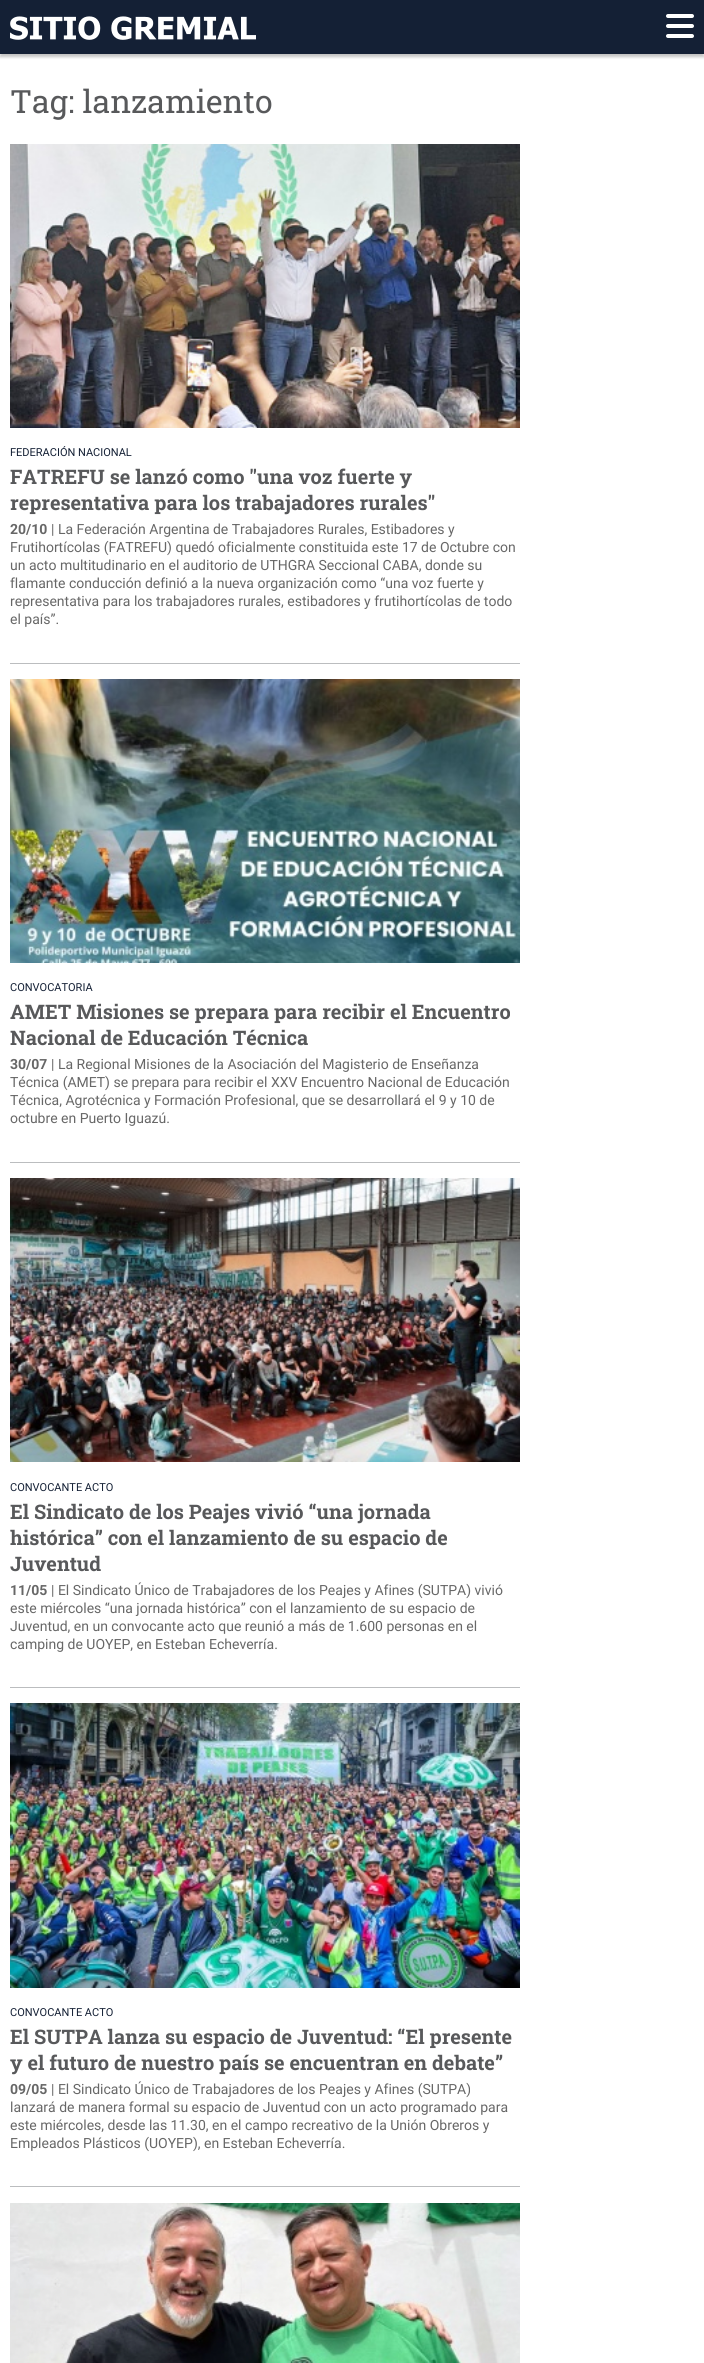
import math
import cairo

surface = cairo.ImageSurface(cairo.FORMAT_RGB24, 704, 2363)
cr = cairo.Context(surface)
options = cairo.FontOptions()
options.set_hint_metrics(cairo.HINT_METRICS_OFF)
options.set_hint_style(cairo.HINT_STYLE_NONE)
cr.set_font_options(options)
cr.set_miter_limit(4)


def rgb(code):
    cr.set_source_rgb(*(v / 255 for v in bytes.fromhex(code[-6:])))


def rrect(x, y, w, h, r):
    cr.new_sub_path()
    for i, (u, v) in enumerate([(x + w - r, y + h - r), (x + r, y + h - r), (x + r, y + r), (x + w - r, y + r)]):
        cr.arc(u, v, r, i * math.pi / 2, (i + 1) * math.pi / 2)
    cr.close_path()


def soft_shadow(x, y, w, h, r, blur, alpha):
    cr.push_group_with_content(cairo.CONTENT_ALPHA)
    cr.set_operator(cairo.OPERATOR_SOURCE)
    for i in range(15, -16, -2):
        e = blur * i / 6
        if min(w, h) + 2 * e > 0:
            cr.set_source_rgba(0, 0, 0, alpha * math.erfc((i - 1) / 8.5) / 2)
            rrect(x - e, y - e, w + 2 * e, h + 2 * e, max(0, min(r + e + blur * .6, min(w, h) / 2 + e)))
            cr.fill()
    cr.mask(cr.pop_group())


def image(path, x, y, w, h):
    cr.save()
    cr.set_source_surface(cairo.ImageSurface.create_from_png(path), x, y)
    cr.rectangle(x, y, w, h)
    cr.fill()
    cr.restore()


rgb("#ffffff")
cr.paint()
rgb("#323232")
soft_shadow(0, 3, 704, 54, 0, 1.5, 0.3)
rgb("#142035")
cr.rectangle(0, 0, 704, 54)
cr.fill()
image("img/1.png", 10, 16, 246, 24)
image("img/2.png", 666, 14, 28, 24)
rgb("#bbbdbf")
cr.rectangle(10, 663, 510, 1)
cr.fill()
image("img/3.png", 10, 144, 510, 284)
cr.rectangle(10, 1162, 510, 1)
cr.fill()
image("img/4.png", 10, 679, 510, 284)
cr.rectangle(10, 1687, 510, 1)
cr.fill()
image("img/5.png", 10, 1178, 510, 284)
cr.rectangle(10, 2186, 510, 1)
cr.fill()
image("img/6.png", 10, 1703, 510, 285)
image("img/7.png", 10, 2203, 510, 160)
cr.select_font_face("Roboto Slab")
cr.set_font_size(32)
rgb("#58595b")
cr.move_to(10, 113)
cr.show_text("Tag: lanzamiento")
cr.select_font_face("Roboto")
cr.set_font_size(11)
rgb("#142035")
cr.move_to(10, 456)
cr.show_text("FEDERACIÓN NACIONAL")
cr.select_font_face("Roboto Slab", cairo.FONT_SLANT_NORMAL, cairo.FONT_WEIGHT_BOLD)
cr.set_font_size(20)
rgb("#58595b")
cr.move_to(10, 484)
cr.show_text("FATREFU se lanzó como \"una voz fuerte y")
cr.move_to(10, 510)
cr.show_text("representativa para los trabajadores rurales\"")
cr.select_font_face("Roboto", cairo.FONT_SLANT_NORMAL, cairo.FONT_WEIGHT_BOLD)
cr.set_font_size(14)
rgb("#676767")
cr.move_to(10, 534)
cr.show_text("20/10")
cr.select_font_face("Roboto")
for x, y, s in [
    (51, 534, "| La Federación Argentina de Trabajadores Rurales, Estibadores y"),
    (10, 552, "Frutihortícolas (FATREFU) quedó oficialmente constituida este 17 de Octubre con"),
    (10, 570, "un acto multitudinario en el auditorio de UTHGRA Seccional CABA, donde su"),
    (10, 588, "flamante conducción definió a la nueva organización como “una voz fuerte y"),
    (10, 606, "representativa para los trabajadores rurales, estibadores y frutihortícolas de todo"),
    (10, 624, "el país”."),
]:
    cr.move_to(x, y)
    cr.show_text(s)
cr.set_font_size(11)
rgb("#142035")
cr.move_to(10, 991)
cr.show_text("CONVOCATORIA")
cr.select_font_face("Roboto Slab", cairo.FONT_SLANT_NORMAL, cairo.FONT_WEIGHT_BOLD)
cr.set_font_size(20)
rgb("#58595b")
cr.move_to(10, 1019)
cr.show_text("AMET Misiones se prepara para recibir el Encuentro")
cr.move_to(10, 1045)
cr.show_text("Nacional de Educación Técnica")
cr.select_font_face("Roboto", cairo.FONT_SLANT_NORMAL, cairo.FONT_WEIGHT_BOLD)
cr.set_font_size(14)
rgb("#676767")
cr.move_to(10, 1069)
cr.show_text("30/07")
cr.select_font_face("Roboto")
for x, y, s in [
    (51, 1069, "| La Regional Misiones de la Asociación del Magisterio de Enseñanza"),
    (10, 1087, "Técnica (AMET) se prepara para recibir el XXV Encuentro Nacional de Educación"),
    (10, 1105, "Técnica, Agrotécnica y Formación Profesional, que se desarrollará el 9 y 10 de"),
    (10, 1123, "octubre en Puerto Iguazú."),
]:
    cr.move_to(x, y)
    cr.show_text(s)
cr.set_font_size(11)
rgb("#142035")
cr.move_to(10, 1491)
cr.show_text("CONVOCANTE ACTO")
cr.select_font_face("Roboto Slab", cairo.FONT_SLANT_NORMAL, cairo.FONT_WEIGHT_BOLD)
cr.set_font_size(20)
rgb("#58595b")
for x, y, s in [
    (10, 1519, "El Sindicato de los Peajes vivió “una jornada"),
    (10, 1545, "histórica” con el lanzamiento de su espacio de"),
    (10, 1571, "Juventud"),
]:
    cr.move_to(x, y)
    cr.show_text(s)
cr.select_font_face("Roboto", cairo.FONT_SLANT_NORMAL, cairo.FONT_WEIGHT_BOLD)
cr.set_font_size(14)
rgb("#676767")
cr.move_to(10, 1595)
cr.show_text("11/05")
cr.select_font_face("Roboto")
for x, y, s in [
    (51, 1595, "| El Sindicato Único de Trabajadores de los Peajes y Afines (SUTPA) vivió"),
    (10, 1613, "este miércoles “una jornada histórica” con el lanzamiento de su espacio de"),
    (10, 1631, "Juventud, en un convocante acto que reunió a más de 1.600 personas en el"),
    (10, 1649, "camping de UOYEP, en Esteban Echeverría."),
]:
    cr.move_to(x, y)
    cr.show_text(s)
cr.set_font_size(11)
rgb("#142035")
cr.move_to(10, 2016)
cr.show_text("CONVOCANTE ACTO")
cr.select_font_face("Roboto Slab", cairo.FONT_SLANT_NORMAL, cairo.FONT_WEIGHT_BOLD)
cr.set_font_size(20)
rgb("#58595b")
cr.move_to(10, 2044)
cr.show_text("El SUTPA lanza su espacio de Juventud: “El presente")
cr.move_to(10, 2070)
cr.show_text("y el futuro de nuestro país se encuentran en debate”")
cr.select_font_face("Roboto", cairo.FONT_SLANT_NORMAL, cairo.FONT_WEIGHT_BOLD)
cr.set_font_size(14)
rgb("#676767")
cr.move_to(10, 2094)
cr.show_text("09/05")
cr.select_font_face("Roboto")
for x, y, s in [
    (51, 2094, "| El Sindicato Único de Trabajadores de los Peajes y Afines (SUTPA)"),
    (10, 2112, "lanzará de manera formal su espacio de Juventud con un acto programado para"),
    (10, 2130, "este miércoles, desde las 11.30, en el campo recreativo de la Unión Obreros y"),
    (10, 2148, "Empleados Plásticos (UOYEP), en Esteban Echeverría."),
]:
    cr.move_to(x, y)
    cr.show_text(s)
surface.write_to_png("page.png")
